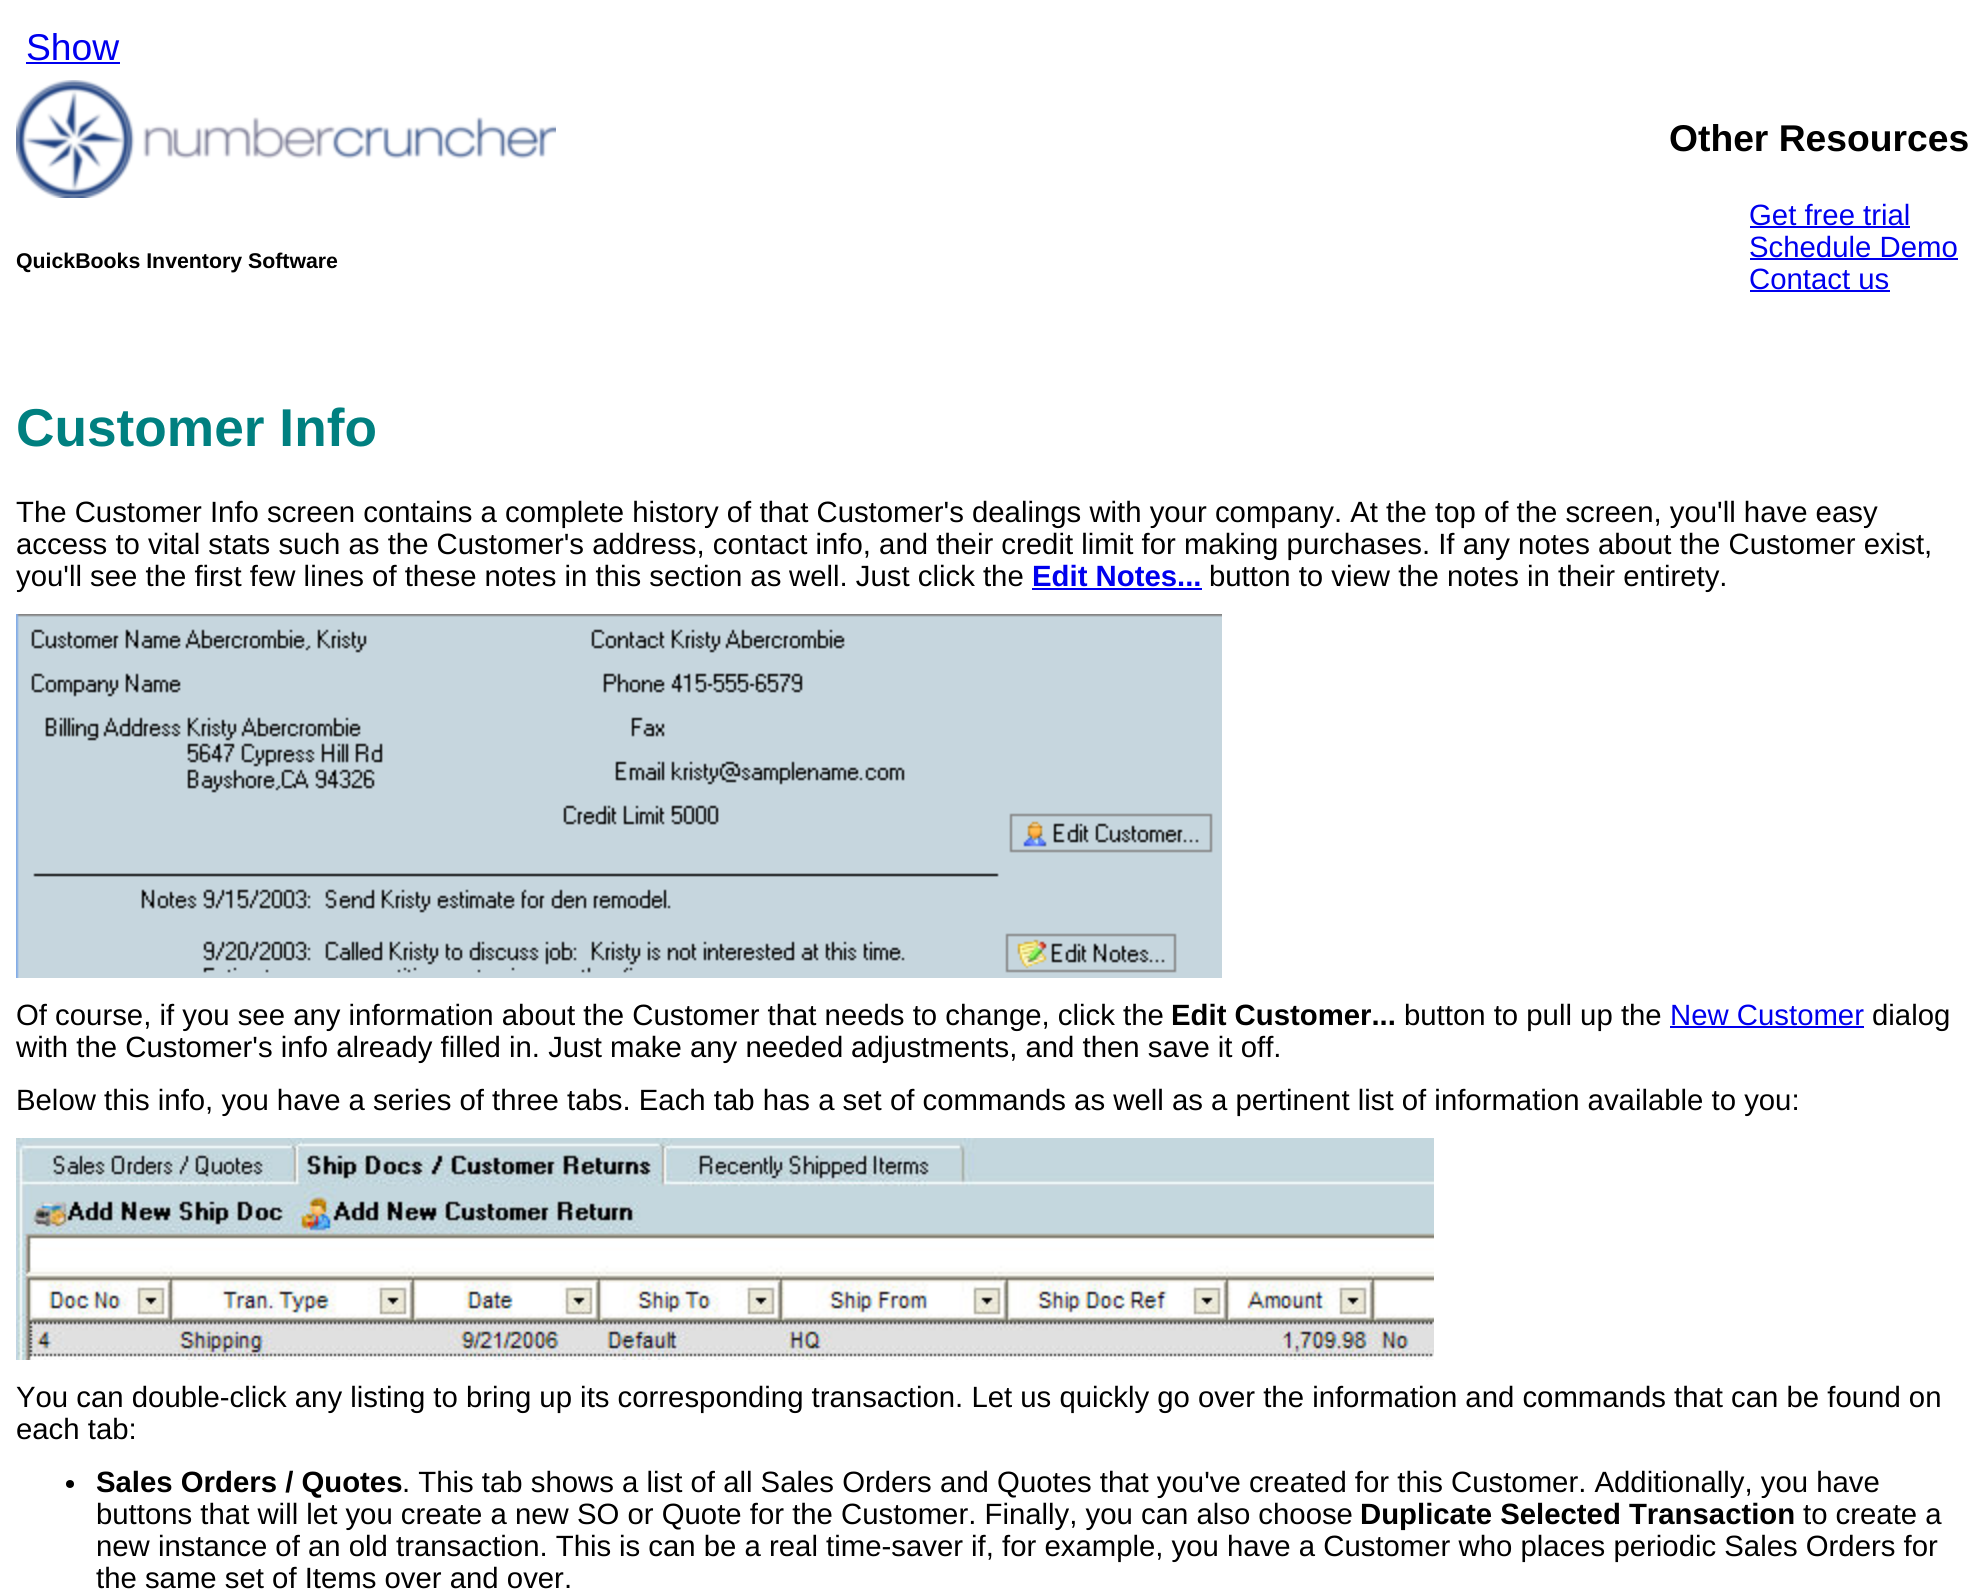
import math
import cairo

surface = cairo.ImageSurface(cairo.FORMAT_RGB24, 1985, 1591)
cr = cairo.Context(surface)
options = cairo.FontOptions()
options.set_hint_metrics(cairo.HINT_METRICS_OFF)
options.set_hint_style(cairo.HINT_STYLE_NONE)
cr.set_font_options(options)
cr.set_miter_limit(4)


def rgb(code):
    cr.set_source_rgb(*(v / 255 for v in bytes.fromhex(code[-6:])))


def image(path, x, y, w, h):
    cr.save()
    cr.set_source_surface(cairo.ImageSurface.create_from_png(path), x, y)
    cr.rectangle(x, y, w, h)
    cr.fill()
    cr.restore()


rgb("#ffffff")
cr.paint()
rgb("#0000ee")
cr.rectangle(26, 62, 94, 2)
cr.fill()
image("img/1.png", 16, 80, 540, 118)
for x, y, w, h, color in [
    (1750, 226, 160, 2, "#0000ee"),
    (1750, 258, 208, 2, "#0000ee"),
    (1750, 290, 140, 2, "#0000ee"),
    (1032, 588, 170, 2, "#0000ee"),
]:
    rgb(color)
    cr.rectangle(x, y, w, h)
    cr.fill()
image("img/2.png", 16, 614, 1206, 364)
cr.rectangle(1670, 1026, 194, 2)
cr.fill()
image("img/3.png", 16, 1138, 1418, 222)
rgb("#000000")
cr.arc(70, 1484, 4, 0, 2 * math.pi)
cr.fill()
cr.select_font_face("Liberation Sans")
cr.set_font_size(37.25)
rgb("#0000ee")
cr.move_to(26, 60)
cr.show_text("Show")
cr.select_font_face("Liberation Sans", cairo.FONT_SLANT_NORMAL, cairo.FONT_WEIGHT_BOLD)
cr.set_font_size(21.3)
rgb("#000000")
cr.move_to(16, 268)
cr.show_text("QuickBooks Inventory Software")
cr.set_font_size(37.25)
cr.move_to(1669, 151)
cr.show_text("Other Resources")
cr.select_font_face("Liberation Sans")
cr.set_font_size(29.33)
rgb("#0000ee")
for x, y, s in [
    (1749, 225, "Get free trial"),
    (1749, 257, "Schedule Demo"),
    (1749, 289, "Contact us"),
]:
    cr.move_to(x, y)
    cr.show_text(s)
cr.select_font_face("Liberation Sans", cairo.FONT_SLANT_NORMAL, cairo.FONT_WEIGHT_BOLD)
cr.set_font_size(53.25)
rgb("#008080")
cr.move_to(16, 446)
cr.show_text("Customer Info")
cr.select_font_face("Liberation Sans")
cr.set_font_size(29.33)
rgb("#000000")
for x, y, s in [
    (16, 522, "The Customer Info screen contains a complete history of that Customer's dealings with your company. At the top of the screen, you'll have easy"),
    (16, 554, "access to vital stats such as the Customer's address, contact info, and their credit limit for making purchases. If any notes about the Customer exist,"),
    (16, 586, "you'll see the first few lines of these notes in this section as"),
    (789, 586, "well. Just click the"),
]:
    cr.move_to(x, y)
    cr.show_text(s)
cr.select_font_face("Liberation Sans", cairo.FONT_SLANT_NORMAL, cairo.FONT_WEIGHT_BOLD)
rgb("#0000ee")
cr.move_to(1032, 586)
cr.show_text("Edit Notes...")
cr.select_font_face("Liberation Sans")
rgb("#000000")
cr.move_to(1209, 586)
cr.show_text("button to view the notes in their entirety.")
cr.move_to(16, 1025)
cr.show_text("Of course, if you see any information about the Customer that needs to change, click the")
cr.select_font_face("Liberation Sans", cairo.FONT_SLANT_NORMAL, cairo.FONT_WEIGHT_BOLD)
cr.move_to(1171, 1025)
cr.show_text("Edit Customer...")
cr.select_font_face("Liberation Sans")
cr.move_to(1404, 1025)
cr.show_text("button to pull up the")
rgb("#0000ee")
cr.move_to(1670, 1025)
cr.show_text("New Customer")
rgb("#000000")
for x, y, s in [
    (1872, 1025, "dialog"),
    (16, 1057, "with the Customer's info already filled in. Just make any needed"),
    (851, 1057, "adjustments, and then save it off."),
    (16, 1110, "Below this info, you have a series of three tabs. Each tab has a set of commands as well as a pertinent list of information available to you:"),
    (16, 1407, "You can double-click any listing to bring up its corresponding transaction. Let us quickly go over the information and commands that can be found on"),
    (16, 1439, "each tab:"),
]:
    cr.move_to(x, y)
    cr.show_text(s)
cr.select_font_face("Liberation Sans", cairo.FONT_SLANT_NORMAL, cairo.FONT_WEIGHT_BOLD)
cr.move_to(96, 1492)
cr.show_text("Sales Orders / Quotes")
cr.select_font_face("Liberation Sans")
for x, y, s in [
    (402, 1492, ". This tab shows a list of all Sales Orders"),
    (940, 1492, "and Quotes that you've created for this Customer. Additionally, you have"),
    (96, 1524, "buttons that will let you create a new SO or Quote for the Customer. Finally, you can also choose"),
]:
    cr.move_to(x, y)
    cr.show_text(s)
cr.select_font_face("Liberation Sans", cairo.FONT_SLANT_NORMAL, cairo.FONT_WEIGHT_BOLD)
cr.move_to(1360, 1524)
cr.show_text("Duplicate Selected Transaction")
cr.select_font_face("Liberation Sans")
for x, y, s in [
    (1803, 1524, "to create a"),
    (96, 1556, "new instance of an old transaction. This"),
    (619, 1556, "is can be a real time-saver if, for example, you have a Customer who places periodic Sales Orders for"),
    (96, 1588, "the same set of Items over and over."),
]:
    cr.move_to(x, y)
    cr.show_text(s)
surface.write_to_png("page.png")
